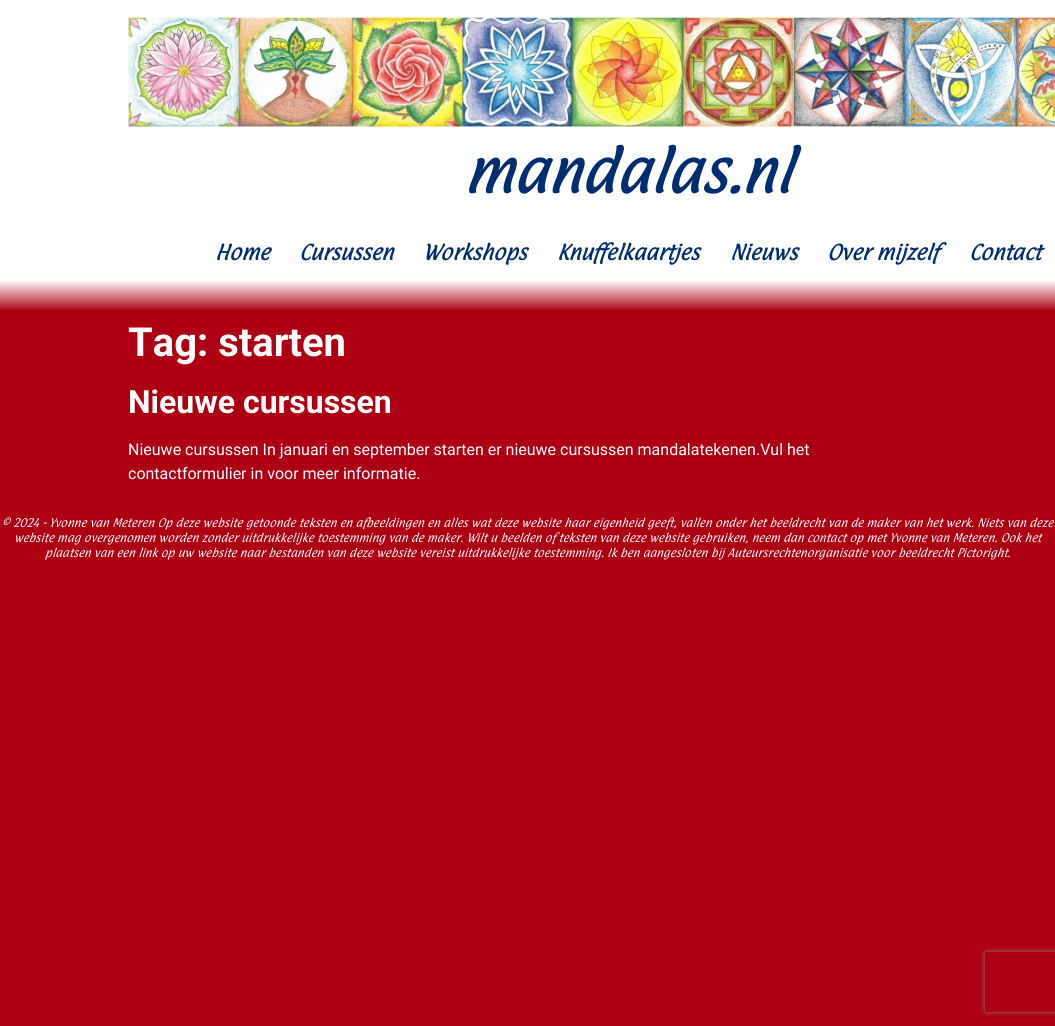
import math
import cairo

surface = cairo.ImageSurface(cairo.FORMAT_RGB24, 1055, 1026)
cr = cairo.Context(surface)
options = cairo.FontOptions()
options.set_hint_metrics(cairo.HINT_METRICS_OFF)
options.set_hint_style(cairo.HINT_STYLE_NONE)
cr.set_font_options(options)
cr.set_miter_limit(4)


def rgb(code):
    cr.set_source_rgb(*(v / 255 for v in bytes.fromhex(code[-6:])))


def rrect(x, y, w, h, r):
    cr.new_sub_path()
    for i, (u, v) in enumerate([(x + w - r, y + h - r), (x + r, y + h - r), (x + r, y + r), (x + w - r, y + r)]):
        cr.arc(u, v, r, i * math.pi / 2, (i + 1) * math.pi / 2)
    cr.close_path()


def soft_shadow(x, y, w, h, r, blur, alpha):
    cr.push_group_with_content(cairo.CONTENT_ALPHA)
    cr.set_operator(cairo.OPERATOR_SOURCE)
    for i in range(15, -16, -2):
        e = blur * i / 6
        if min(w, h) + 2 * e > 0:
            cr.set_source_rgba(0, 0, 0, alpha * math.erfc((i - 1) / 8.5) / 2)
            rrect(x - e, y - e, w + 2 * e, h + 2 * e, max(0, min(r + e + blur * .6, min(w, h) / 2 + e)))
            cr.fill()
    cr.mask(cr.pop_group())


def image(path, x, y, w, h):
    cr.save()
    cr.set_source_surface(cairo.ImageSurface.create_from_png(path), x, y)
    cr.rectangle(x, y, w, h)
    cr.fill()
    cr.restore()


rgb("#ad0012")
cr.paint()
gradient = cairo.LinearGradient(528, 0, 528, 311)
gradient.add_color_stop_rgba(0.9, 1, 1, 1, 1)
gradient.add_color_stop_rgba(1, 0.678, 0, 0.071, 1)
cr.set_source(gradient)
cr.rectangle(0, 0, 1055, 311)
cr.fill()
image("img/1.png", 128, 16, 927, 111)
cr.save()
cr.set_fill_rule(cairo.FILL_RULE_EVEN_ODD)
cr.new_path()
cr.move_to(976, 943)
cr.line_to(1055, 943)
cr.line_to(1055, 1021)
cr.line_to(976, 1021)
cr.close_path()
cr.move_to(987, 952)
cr.line_to(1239, 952)
cr.curve_to(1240, 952, 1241, 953, 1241, 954)
cr.line_to(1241, 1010)
cr.curve_to(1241, 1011, 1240, 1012, 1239, 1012)
cr.line_to(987, 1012)
cr.curve_to(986, 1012, 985, 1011, 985, 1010)
cr.line_to(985, 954)
cr.curve_to(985, 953, 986, 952, 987, 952)
cr.close_path()
cr.clip()
rgb("#808080")
soft_shadow(985, 952, 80, 60, 2, 2.5, 1)
cr.restore()
cr.select_font_face("Paprika", cairo.FONT_SLANT_ITALIC, cairo.FONT_WEIGHT_BOLD)
cr.set_font_size(50)
rgb("#012c70")
cr.move_to(464, 193)
cr.show_text("mandalas.nl")
cr.set_font_size(18)
for x, y, s in [
    (215, 260, "Home"),
    (299, 260, "Cursussen"),
    (423, 260, "Workshops"),
    (557, 260, "Knuffelkaartjes"),
    (730, 260, "Nieuws"),
    (827, 260, "Over mijzelf"),
    (969, 260, "Contact"),
]:
    cr.move_to(x, y)
    cr.show_text(s)
cr.select_font_face("Roboto", cairo.FONT_SLANT_NORMAL, cairo.FONT_WEIGHT_BOLD)
cr.set_font_size(40)
rgb("#ffffff")
cr.move_to(128, 356)
cr.show_text("Tag: starten")
cr.set_font_size(32)
cr.move_to(128, 413)
cr.show_text("Nieuwe cursussen")
cr.select_font_face("Roboto")
cr.set_font_size(16)
cr.move_to(128, 455)
cr.show_text("Nieuwe cursussen In januari en september starten er nieuwe cursussen mandalatekenen.Vul het")
cr.move_to(128, 479)
cr.show_text("contactformulier in voor meer informatie.")
cr.select_font_face("Paprika", cairo.FONT_SLANT_ITALIC)
cr.set_font_size(10)
for x, y, s in [
    (2, 527, "© 2024 - Yvonne van Meteren Op deze website getoonde teksten en afbeeldingen en alles wat deze website haar eigenheid geeft, vallen onder het beeldrecht van de maker van het werk. Niets van deze"),
    (14, 542, "website mag overgenomen worden zonder uitdrukkelijke toestemming van de maker. Wilt u beelden of teksten van deze website gebruiken, neem dan contact op met Yvonne van Meteren. Ook het"),
    (45, 557, "plaatsen van een link op uw website naar bestanden van deze website vereist uitdrukkelijke toestemming. Ik ben aangesloten bij Auteursrechtenorganisatie voor beeldrecht Pictoright."),
]:
    cr.move_to(x, y)
    cr.show_text(s)
surface.write_to_png("page.png")
